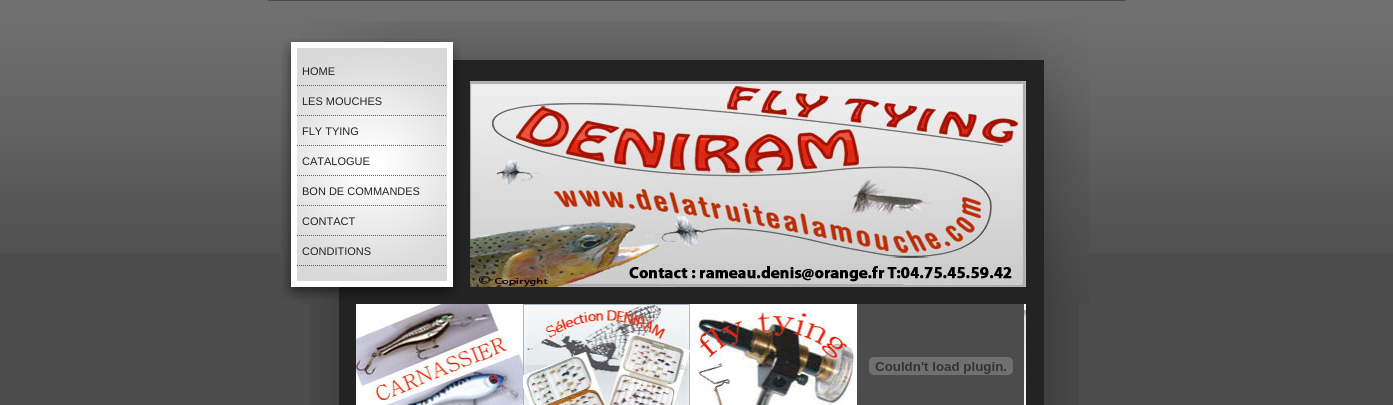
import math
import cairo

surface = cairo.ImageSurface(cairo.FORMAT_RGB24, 1393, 405)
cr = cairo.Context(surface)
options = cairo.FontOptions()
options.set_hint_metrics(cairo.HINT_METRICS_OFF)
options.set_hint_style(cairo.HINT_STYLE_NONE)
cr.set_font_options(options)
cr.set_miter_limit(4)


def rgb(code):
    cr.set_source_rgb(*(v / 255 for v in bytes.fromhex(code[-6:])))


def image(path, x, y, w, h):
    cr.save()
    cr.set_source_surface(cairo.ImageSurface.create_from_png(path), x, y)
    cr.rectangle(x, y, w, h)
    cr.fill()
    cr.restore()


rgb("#4c4c4c")
cr.paint()
image("img/1.png", 0, 0, 1393, 253)
image("img/2.png", 300, 21, 789, 283)
rgb("#4c4c4c")
cr.rectangle(268, 0, 857, 1)
cr.fill()
image("img/3.png", 470, 81, 556, 206)
image("img/4.png", 281, 39, 189, 261)
image("img/5.png", 297, 85, 149, 1)
image("img/6.png", 297, 115, 149, 1)
image("img/7.png", 297, 145, 149, 1)
image("img/8.png", 297, 175, 149, 1)
image("img/9.png", 297, 205, 149, 1)
image("img/10.png", 297, 235, 149, 1)
image("img/11.png", 297, 265, 149, 1)
image("img/12.png", 310, 304, 769, 101)
image("img/13.png", 1024, 304, 2, 101)
image("img/14.png", 356, 304, 167, 101)
image("img/15.png", 523, 304, 167, 101)
image("img/16.png", 690, 304, 167, 101)
cr.rectangle(857, 304, 167, 101)
cr.fill()
image("img/17.png", 869, 357, 144, 18)
cr.select_font_face("Liberation Sans")
cr.set_font_size(11)
rgb("#232323")
for x, y, s in [
    (302, 75, "HOME"),
    (302, 105, "LES MOUCHES"),
    (302, 135, "FLY TYING"),
    (302, 165, "CATALOGUE"),
    (302, 195, "BON DE COMMANDES"),
    (302, 225, "CONTACT"),
    (302, 255, "CONDITIONS"),
]:
    cr.move_to(x, y)
    cr.show_text(s)
surface.write_to_png("page.png")
